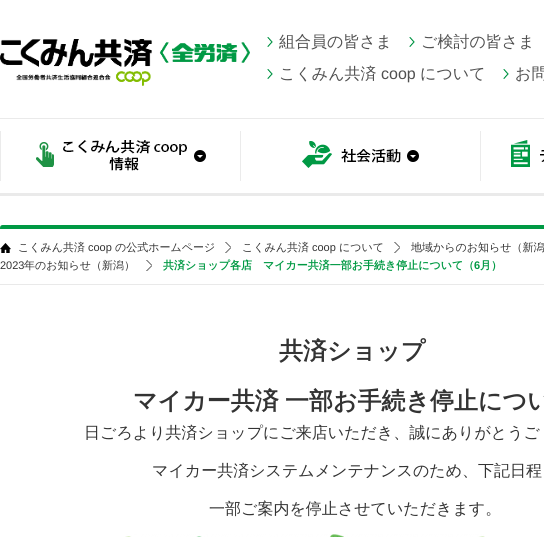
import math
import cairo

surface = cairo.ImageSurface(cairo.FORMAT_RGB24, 544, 537)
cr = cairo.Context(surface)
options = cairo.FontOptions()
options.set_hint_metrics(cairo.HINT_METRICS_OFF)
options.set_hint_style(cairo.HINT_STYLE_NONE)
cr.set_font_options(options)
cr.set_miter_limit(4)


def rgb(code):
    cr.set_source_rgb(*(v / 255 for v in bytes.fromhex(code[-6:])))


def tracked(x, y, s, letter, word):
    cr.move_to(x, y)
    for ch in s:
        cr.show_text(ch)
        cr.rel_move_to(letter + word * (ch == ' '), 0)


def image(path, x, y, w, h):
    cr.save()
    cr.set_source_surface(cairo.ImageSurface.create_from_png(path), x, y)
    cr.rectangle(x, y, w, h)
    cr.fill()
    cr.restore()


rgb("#ffffff")
cr.paint()
image("img/1.png", 0, 39, 250, 47)
image("img/2.png", 0, 39, 250, 47)
image("img/3.png", 267, 37, 6, 10)
image("img/3.png", 409, 37, 6, 10)
image("img/3.png", 267, 69, 6, 10)
image("img/3.png", 503, 69, 6, 10)
rgb("#eaeaea")
cr.rectangle(0, 118, 544, 1)
cr.fill()
cr.rectangle(0, 193, 544, 3)
cr.fill()
image("img/4.png", 0, 131, 206, 50)
image("img/5.png", 240, 131, 179, 50)
image("img/6.png", 480, 131, 64, 50)
rgb("#009944")
cr.new_path()
cr.move_to(3, 225)
cr.curve_to(0, 225, 0, 227, 0, 229)
cr.line_to(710, 229)
cr.curve_to(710, 227, 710, 225, 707, 225)
cr.close_path()
cr.fill()
rgb("#e9e9e9")
cr.rectangle(0, 284, 544, 1)
cr.fill()
image("img/7.png", 0, 243, 11, 10)
image("img/8.png", 225, 242, 6, 11)
image("img/8.png", 394, 242, 6, 11)
image("img/8.png", 146, 260, 6, 11)
image("img/9.png", 125, 534, 360, 3)
cr.select_font_face("WenQuanYi Zen Hei Medium")
cr.set_font_size(16)
rgb("#505050")
for x, y, s in [
    (279, 47, "組合員の皆さま"),
    (421, 47, "ご検討の皆さま"),
    (279, 79, "こくみん共済"),
]:
    cr.move_to(x, y)
    cr.show_text(s)
cr.select_font_face("Liberation Sans")
cr.move_to(381, 79)
cr.show_text("coop")
cr.select_font_face("WenQuanYi Zen Hei Medium")
cr.move_to(420, 79)
cr.show_text("について")
cr.move_to(515, 79)
cr.show_text("お問")
cr.set_font_size(11)
rgb("#333333")
cr.move_to(18, 251)
cr.show_text("こくみん共済")
cr.select_font_face("Liberation Sans")
cr.move_to(88, 251)
cr.show_text("coop")
cr.select_font_face("WenQuanYi Zen Hei Medium")
cr.move_to(115, 251)
cr.show_text("の公式ホームページ")
cr.move_to(242, 251)
cr.show_text("こくみん共済")
cr.select_font_face("Liberation Sans")
cr.move_to(312, 251)
cr.show_text("coop")
cr.select_font_face("WenQuanYi Zen Hei Medium")
cr.move_to(339, 251)
cr.show_text("について")
cr.move_to(411, 251)
cr.show_text("地域からのお知らせ（新潟")
cr.select_font_face("Liberation Sans")
cr.move_to(0, 269)
cr.show_text("2023")
cr.select_font_face("WenQuanYi Zen Hei Medium")
cr.move_to(24, 269)
cr.show_text("年のお知らせ（新潟）")
cr.select_font_face("WenQuanYi Zen Hei", cairo.FONT_SLANT_NORMAL, cairo.FONT_WEIGHT_BOLD)
rgb("#009943")
cr.move_to(163, 269)
cr.show_text("共済ショップ各店　マイカー共済一部お手続き停止について（")
cr.select_font_face("Liberation Sans", cairo.FONT_SLANT_NORMAL, cairo.FONT_WEIGHT_BOLD)
cr.move_to(474, 269)
cr.show_text("6")
cr.select_font_face("WenQuanYi Zen Hei", cairo.FONT_SLANT_NORMAL, cairo.FONT_WEIGHT_BOLD)
cr.move_to(480, 269)
cr.show_text("月）")
cr.set_font_size(24)
rgb("#333333")
cr.move_to(279, 359)
cr.show_text("共済ショップ")
tracked(133, 409, "マイカー共済 一部お手続き停止につい", 0, -1)
cr.select_font_face("WenQuanYi Zen Hei Medium")
cr.set_font_size(16)
for x, y, s in [
    (84, 438, "日ごろより共済ショップにご来店いただき、誠にありがとうご"),
    (152, 476, "マイカー共済システムメンテナンスのため、下記日程"),
    (209, 514, "一部ご案内を停止させていただきます。"),
]:
    cr.move_to(x, y)
    cr.show_text(s)
surface.write_to_png("page.png")
